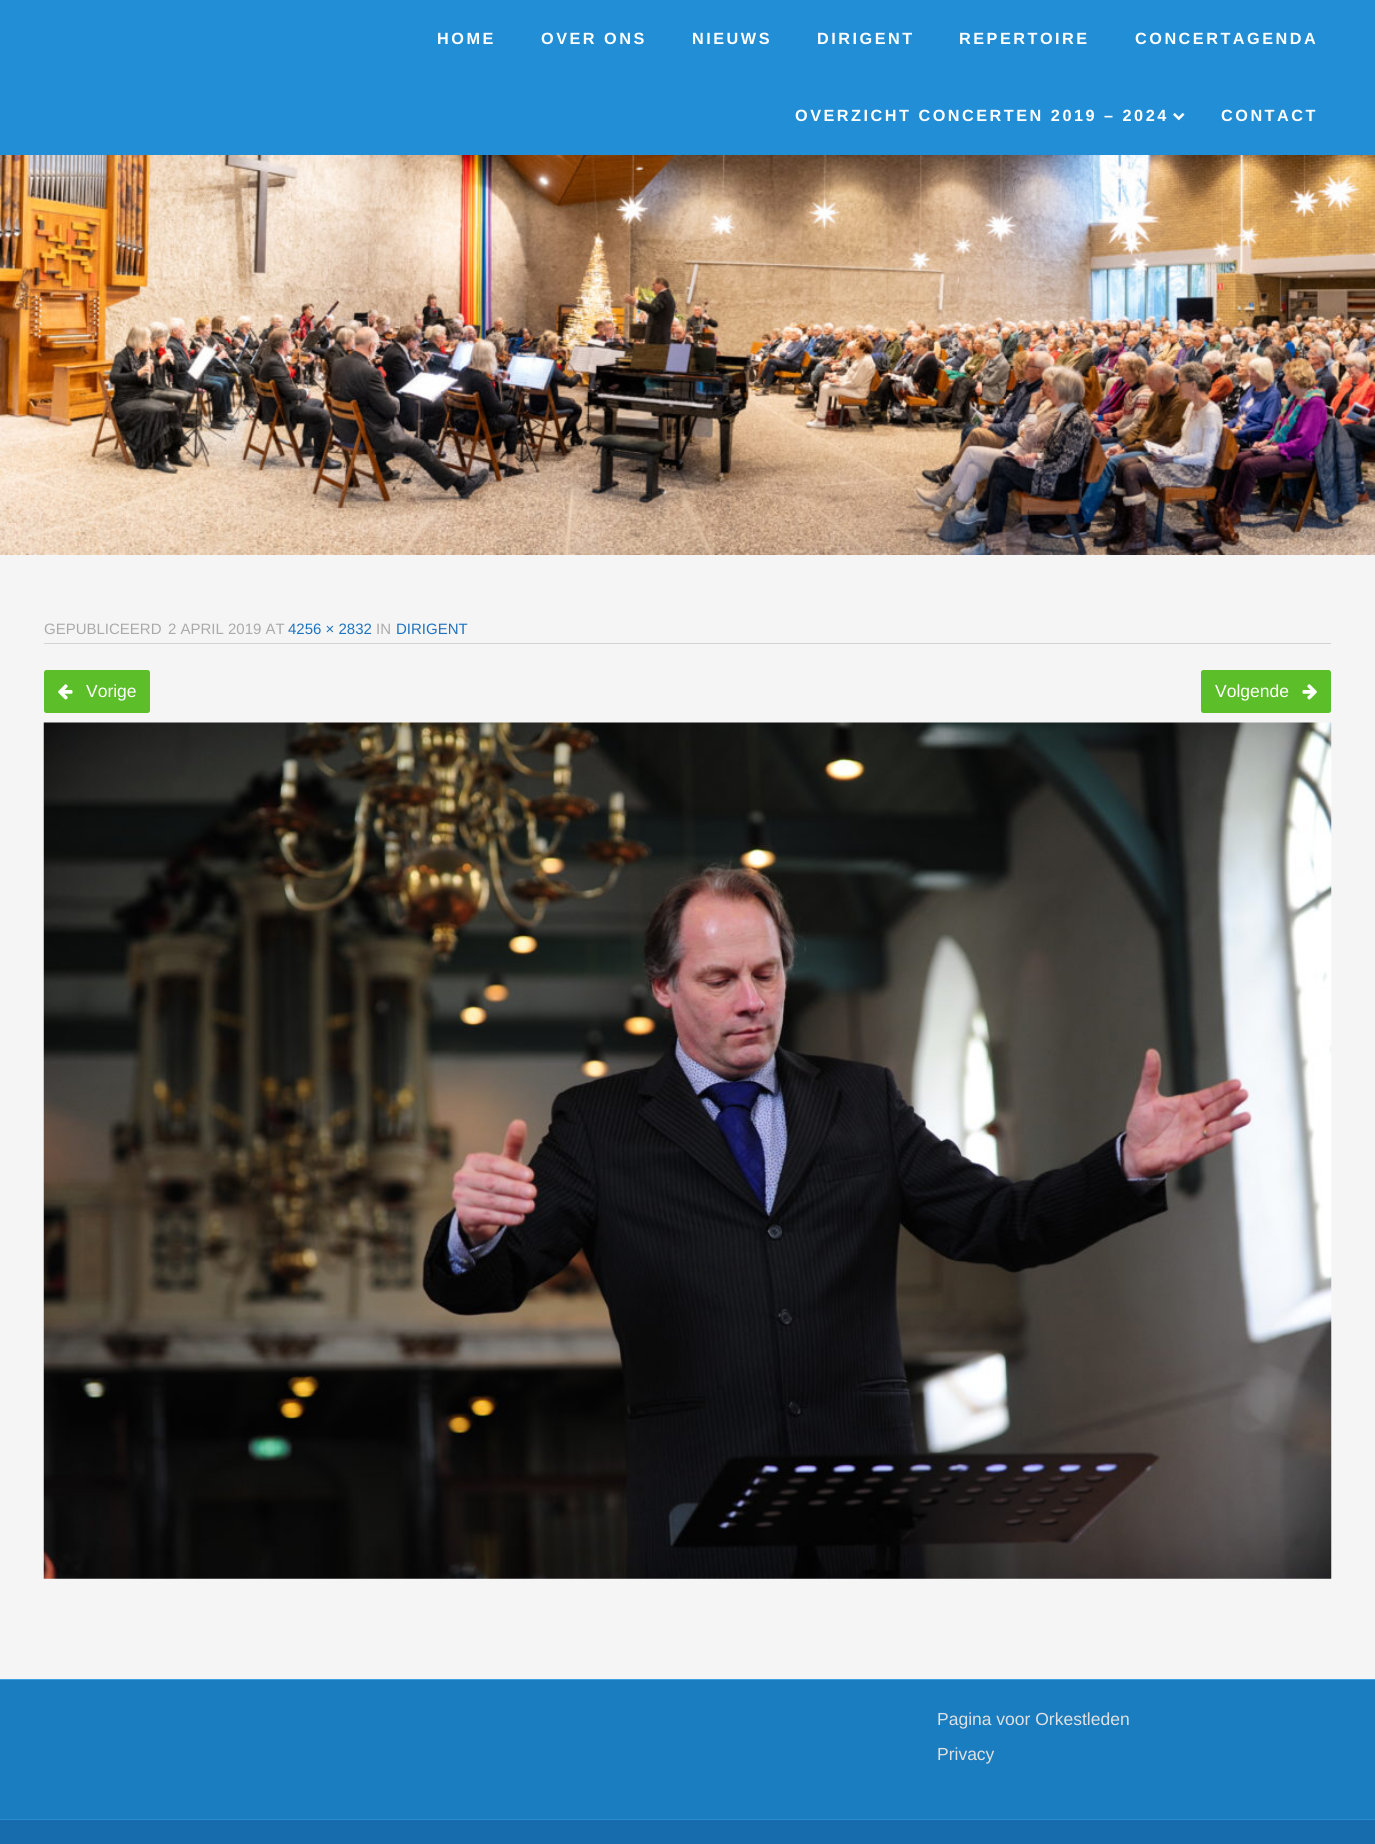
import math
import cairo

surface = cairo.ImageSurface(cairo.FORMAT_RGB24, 1375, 1844)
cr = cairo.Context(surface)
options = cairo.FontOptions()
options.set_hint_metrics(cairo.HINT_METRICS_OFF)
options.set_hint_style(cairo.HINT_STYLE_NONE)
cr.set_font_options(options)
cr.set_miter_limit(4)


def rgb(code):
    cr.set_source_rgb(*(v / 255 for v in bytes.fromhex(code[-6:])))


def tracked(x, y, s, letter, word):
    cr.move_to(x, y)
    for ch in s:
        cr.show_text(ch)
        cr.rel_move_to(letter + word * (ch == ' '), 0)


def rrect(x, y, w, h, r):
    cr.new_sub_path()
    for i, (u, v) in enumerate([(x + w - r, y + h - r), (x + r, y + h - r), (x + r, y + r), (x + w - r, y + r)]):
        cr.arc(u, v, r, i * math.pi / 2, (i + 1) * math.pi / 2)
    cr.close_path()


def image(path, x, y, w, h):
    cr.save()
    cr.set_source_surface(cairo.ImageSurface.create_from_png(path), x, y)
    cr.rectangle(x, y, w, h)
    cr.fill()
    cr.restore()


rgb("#1a7dc0")
cr.paint()
rgb("#228ed6")
cr.rectangle(0, 0, 1375, 155)
cr.fill()
image("img/1.png", 1173, 113, 12, 8)
image("img/2.png", 0, 155, 1375, 400)
rgb("#f5f5f5")
cr.rectangle(0, 555, 1375, 1124)
cr.fill()
rgb("#d3d3d3")
cr.rectangle(44, 643, 1287, 1)
cr.fill()
rgb("#5cbf2a")
rrect(44, 670, 106, 43, 2.5)
cr.fill()
image("img/3.png", 58, 684, 15, 16)
rrect(1201, 670, 130, 43, 2.5)
cr.fill()
image("img/4.png", 1302, 684, 15, 16)
image("img/5.png", 43, 722, 1289, 857)
for x, y, w, h, color in [
    (0, 1679, 1375, 1, "#3da0e3"),
    (0, 1820, 1375, 24, "#166cad"),
    (0, 1819, 1375, 1, "#288bce"),
]:
    rgb(color)
    cr.rectangle(x, y, w, h)
    cr.fill()
cr.select_font_face("Liberation Sans", cairo.FONT_SLANT_NORMAL, cairo.FONT_WEIGHT_BOLD)
cr.set_font_size(16.25)
rgb("#ffffff")
for x, y, s in [
    (437, 44, "HOME"),
    (541, 44, "OVER ONS"),
    (692, 44, "NIEUWS"),
    (817, 44, "DIRIGENT"),
    (959, 44, "REPERTOIRE"),
    (1135, 44, "CONCERTAGENDA"),
    (795, 121, "OVERZICHT CONCERTEN 2019 – 2024"),
    (1221, 121, "CONTACT"),
]:
    tracked(x, y, s, 2.5, 0)
cr.select_font_face("Liberation Sans")
cr.set_font_size(15)
rgb("#aaaaaa")
cr.move_to(44, 634)
cr.show_text("GEPUBLICEERD")
cr.move_to(168, 634)
cr.show_text("2 APRIL 2019 AT")
rgb("#1e73be")
cr.move_to(288, 634)
cr.show_text("4256 × 2832")
rgb("#aaaaaa")
cr.move_to(376, 634)
cr.show_text("IN")
rgb("#1e73be")
cr.move_to(396, 634)
cr.show_text("DIRIGENT")
cr.set_font_size(17.5)
rgb("#ffffff")
cr.move_to(86, 697)
cr.show_text("Vorige")
cr.move_to(1215, 697)
cr.show_text("Volgende")
rgb("#e0e0e0")
cr.move_to(937, 1725)
cr.show_text("Pagina voor Orkestleden")
cr.move_to(937, 1760)
cr.show_text("Privacy")
surface.write_to_png("page.png")
